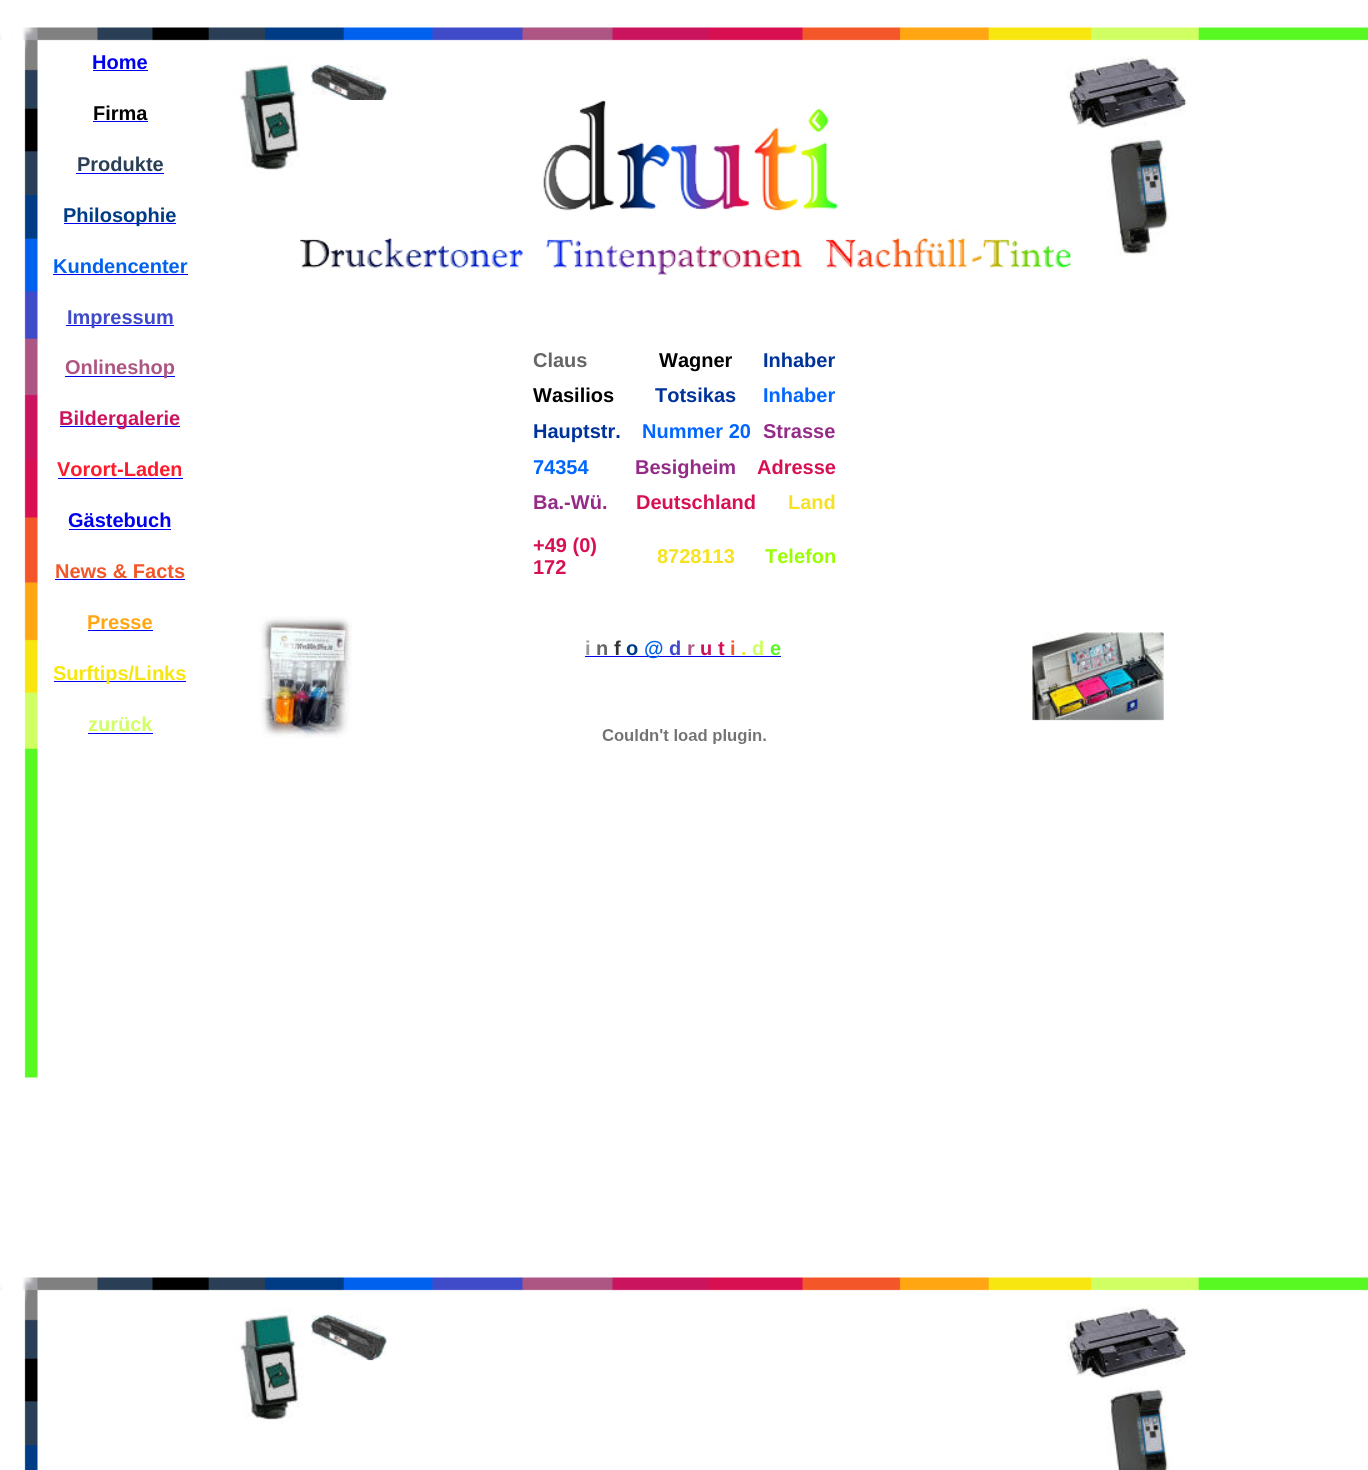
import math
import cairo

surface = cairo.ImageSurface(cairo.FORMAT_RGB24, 1368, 1470)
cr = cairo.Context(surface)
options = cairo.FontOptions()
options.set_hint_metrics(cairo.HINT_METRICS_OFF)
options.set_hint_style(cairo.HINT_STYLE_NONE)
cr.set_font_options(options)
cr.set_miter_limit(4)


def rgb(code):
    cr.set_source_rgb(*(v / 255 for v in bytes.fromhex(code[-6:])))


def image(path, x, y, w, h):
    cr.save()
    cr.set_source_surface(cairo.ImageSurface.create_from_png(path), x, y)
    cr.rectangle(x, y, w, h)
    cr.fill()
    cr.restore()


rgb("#ffffff")
cr.paint()
image("img/1.png", 0, 27, 1368, 1443)
for x, y, w, h, color in [
    (93, 70, 55, 1, "#0000ee"),
    (93, 121, 55, 1, "#0000ee"),
    (76, 173, 88, 1, "#0000ee"),
    (64, 223, 112, 1, "#0000ee"),
    (53, 274, 135, 1, "#0000ee"),
    (66, 325, 108, 1, "#0000ee"),
    (65, 376, 110, 1, "#0000ee"),
    (60, 426, 120, 1, "#0000ee"),
    (58, 478, 125, 1, "#0000ee"),
    (69, 529, 102, 1, "#0000ee"),
    (55, 579, 130, 1, "#0000ee"),
    (88, 630, 65, 1, "#0000ee"),
    (54, 681, 132, 1, "#0000ee"),
    (88, 733, 65, 1, "#0000ee"),
]:
    rgb(color)
    cr.rectangle(x, y, w, h)
    cr.fill()
image("img/2.png", 300, 100, 772, 175)
cr.rectangle(585, 656, 196, 1)
cr.fill()
image("img/3.png", 602, 729, 164, 15)
cr.select_font_face("Liberation Sans", cairo.FONT_SLANT_NORMAL, cairo.FONT_WEIGHT_BOLD)
cr.set_font_size(20)
cr.move_to(92, 69)
cr.show_text("Home")
rgb("#000000")
cr.move_to(93, 120)
cr.show_text("Firma")
rgb("#2a3f55")
cr.move_to(77, 171)
cr.show_text("Produkte")
rgb("#003b86")
cr.move_to(63, 222)
cr.show_text("Philosophie")
rgb("#0061ee")
cr.move_to(53, 273)
cr.show_text("Kundencenter")
rgb("#404bc9")
cr.move_to(67, 324)
cr.show_text("Impressum")
rgb("#ad5683")
cr.move_to(65, 374)
cr.show_text("Onlineshop")
rgb("#ca145e")
cr.move_to(59, 425)
cr.show_text("Bildergalerie")
rgb("#fd1b2c")
cr.move_to(57, 476)
cr.show_text("Vorort-Laden")
rgb("#0000ee")
cr.move_to(68, 527)
cr.show_text("Gästebuch")
rgb("#f35629")
cr.move_to(55, 578)
cr.show_text("News & Facts")
rgb("#ffa612")
cr.move_to(87, 629)
cr.show_text("Presse")
rgb("#f7e610")
cr.move_to(53, 680)
cr.show_text("Surftips/Links")
rgb("#d0ff63")
cr.move_to(88, 731)
cr.show_text("zurück")
rgb("#666666")
cr.move_to(533, 367)
cr.show_text("Claus")
rgb("#000000")
cr.move_to(659, 367)
cr.show_text("Wagner")
rgb("#003399")
cr.move_to(763, 367)
cr.show_text("Inhaber")
rgb("#000000")
cr.move_to(533, 402)
cr.show_text("Wasilios")
rgb("#003399")
cr.move_to(655, 402)
cr.show_text("Totsikas")
rgb("#0066ff")
cr.move_to(763, 402)
cr.show_text("Inhaber")
rgb("#003399")
cr.move_to(533, 438)
cr.show_text("Hauptstr.")
rgb("#0066ff")
cr.move_to(642, 438)
cr.show_text("Nummer 20")
rgb("#942c87")
cr.move_to(763, 438)
cr.show_text("Strasse")
rgb("#0066ff")
cr.move_to(533, 474)
cr.show_text("74354")
rgb("#942c87")
cr.move_to(635, 474)
cr.show_text("Besigheim")
rgb("#d71053")
cr.move_to(757, 474)
cr.show_text("Adresse")
rgb("#942c87")
cr.move_to(533, 509)
cr.show_text("Ba.-Wü.")
rgb("#d71053")
cr.move_to(636, 509)
cr.show_text("Deutschland")
rgb("#f6e223")
cr.move_to(788, 509)
cr.show_text("Land")
rgb("#d71053")
cr.move_to(533, 552)
cr.show_text("+49 (0)")
cr.move_to(533, 574)
cr.show_text("172")
rgb("#f6e223")
cr.move_to(657, 563)
cr.show_text("8728113")
rgb("#99ff00")
cr.move_to(765, 563)
cr.show_text("Telefon")
rgb("#999999")
cr.move_to(585, 655)
cr.show_text("i")
rgb("#666666")
cr.move_to(596, 655)
cr.show_text("n")
rgb("#333333")
cr.move_to(614, 655)
cr.show_text("f")
rgb("#003b86")
cr.move_to(626, 655)
cr.show_text("o")
rgb("#0061ee")
cr.move_to(644, 655)
cr.show_text("@")
rgb("#404bc9")
cr.move_to(669, 655)
cr.show_text("d")
rgb("#ad5683")
cr.move_to(687, 655)
cr.show_text("r")
rgb("#ca145e")
cr.move_to(700, 655)
cr.show_text("u")
rgb("#d71053")
cr.move_to(718, 655)
cr.show_text("t")
rgb("#f35629")
cr.move_to(730, 655)
cr.show_text("i")
rgb("#f7e610")
cr.move_to(741, 655)
cr.show_text(".")
rgb("#d0ff63")
cr.move_to(752, 655)
cr.show_text("d")
rgb("#58f922")
cr.move_to(770, 655)
cr.show_text("e")
surface.write_to_png("page.png")
